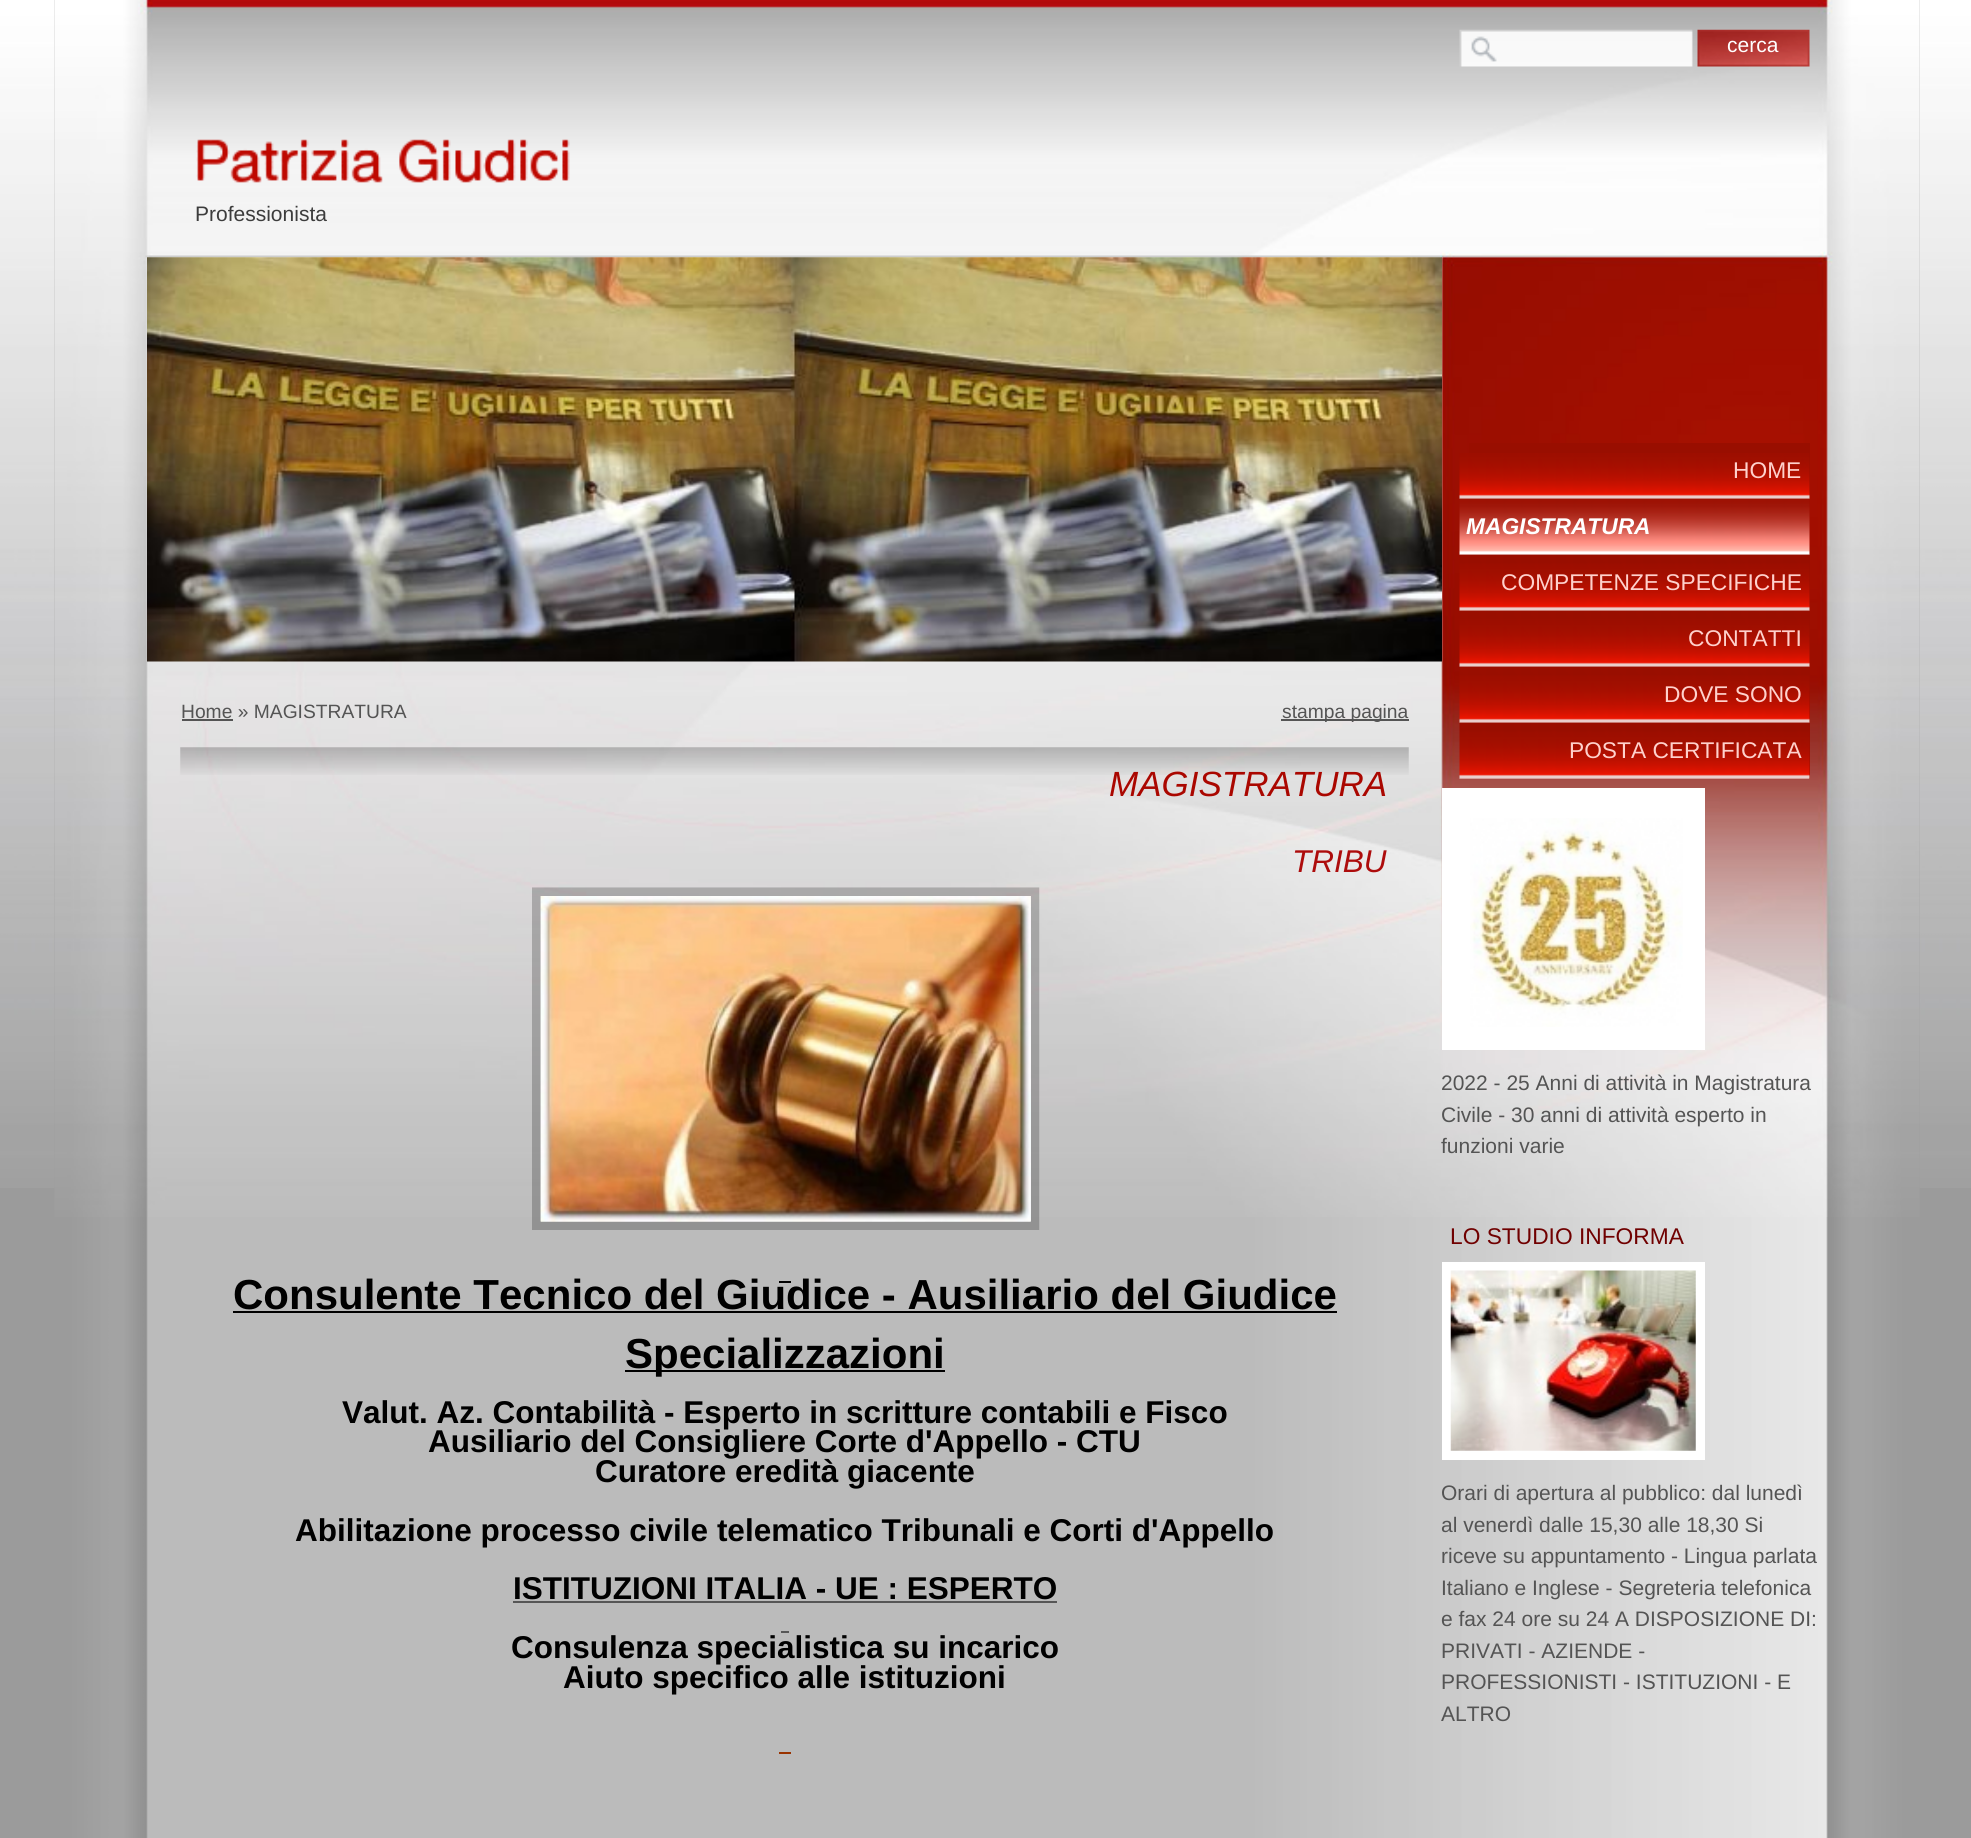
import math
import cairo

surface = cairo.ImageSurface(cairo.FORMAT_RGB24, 1971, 1838)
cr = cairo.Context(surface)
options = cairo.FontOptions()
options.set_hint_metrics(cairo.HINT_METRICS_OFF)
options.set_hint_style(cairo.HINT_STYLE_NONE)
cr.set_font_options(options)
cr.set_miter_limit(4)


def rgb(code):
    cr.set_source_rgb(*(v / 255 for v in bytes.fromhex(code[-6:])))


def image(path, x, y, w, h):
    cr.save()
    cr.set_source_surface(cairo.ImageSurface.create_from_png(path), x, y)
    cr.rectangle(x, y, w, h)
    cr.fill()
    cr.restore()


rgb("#9b9b9b")
cr.paint()
image("img/1.png", 0, 0, 1971, 1188)
image("img/2.png", 54, 0, 1866, 1838)
image("img/3.png", 54, 0, 1866, 1217)
image("img/4.png", 1459, 29, 351, 38)
image("img/5.png", 196, 139, 374, 44)
image("img/6.png", 147, 257, 1295, 405)
rgb("#545454")
cr.rectangle(182, 719, 51, 2)
cr.fill()
rgb("#555555")
cr.rectangle(1281, 719, 128, 2)
cr.fill()
image("img/7.png", 180, 747, 1229, 28)
image("img/8.png", 532, 887, 508, 343)
image("img/9.png", 540, 896, 491, 326)
for x, y, w, h, color in [
    (233, 1311, 1104, 2, "#000000"),
    (779, 1281, 12, 2, "#000000"),
    (625, 1370, 320, 2, "#000000"),
    (513, 1601, 544, 2, "#565656"),
    (781, 1631, 8, 2, "#565656"),
    (779, 1752, 12, 2, "#993300"),
    (1469, 443, 341, 56, "#990e00"),
]:
    rgb(color)
    cr.rectangle(x, y, w, h)
    cr.fill()
image("img/10.png", 1459, 453, 351, 46)
rgb("#9c0f01")
cr.rectangle(1552, 499, 258, 56)
cr.fill()
image("img/11.png", 1459, 498, 351, 57)
rgb("#990e00")
cr.rectangle(1483, 555, 327, 56)
cr.fill()
image("img/12.png", 1459, 554, 351, 57)
cr.rectangle(1525, 611, 285, 56)
cr.fill()
image("img/13.png", 1459, 610, 351, 57)
cr.rectangle(1460, 667, 350, 112)
cr.fill()
image("img/14.png", 1459, 666, 351, 57)
image("img/15.png", 1459, 722, 351, 57)
rgb("#ffffff")
cr.rectangle(1442, 788, 263, 262)
cr.fill()
image("img/16.png", 1470, 818, 213, 209)
cr.rectangle(1442, 1262, 263, 198)
cr.fill()
image("img/17.png", 1450, 1270, 246, 181)
cr.select_font_face("Liberation Sans")
cr.set_font_size(21)
cr.move_to(1727, 52)
cr.show_text("cerca")
rgb("#3c3c3c")
cr.move_to(195, 221)
cr.show_text("Professionista")
cr.set_font_size(19.25)
rgb("#545454")
cr.move_to(181, 718)
cr.show_text("Home » MAGISTRATURA")
cr.move_to(1282, 718)
cr.show_text("stampa pagina")
cr.select_font_face("Liberation Sans", cairo.FONT_SLANT_ITALIC)
cr.set_font_size(35)
rgb("#aa0700")
cr.move_to(1109, 796)
cr.show_text("MAGISTRATURA")
cr.set_font_size(31.5)
rgb("#ad0c0c")
cr.move_to(1292, 872)
cr.show_text("TRIBU")
cr.select_font_face("Liberation Sans", cairo.FONT_SLANT_NORMAL, cairo.FONT_WEIGHT_BOLD)
cr.set_font_size(42)
rgb("#000000")
cr.move_to(233, 1309)
cr.show_text("Consulente Tecnico del Giudice - Ausiliario del Giudice")
cr.move_to(625, 1368)
cr.show_text("Specializzazioni")
cr.set_font_size(31.5)
for x, y, s in [
    (342, 1423, "Valut. Az. Contabilità - Esperto in scritture contabili e Fisco"),
    (428, 1452, "Ausiliario del Consigliere Corte d'Appello - CTU"),
    (595, 1482, "Curatore eredità giacente"),
    (295, 1541, "Abilitazione processo civile telematico Tribunali e Corti d'Appello"),
    (513, 1599, "ISTITUZIONI ITALIA - UE : ESPERTO"),
    (511, 1658, "Consulenza specialistica su incarico"),
    (563, 1688, "Aiuto specifico alle istituzioni"),
]:
    cr.move_to(x, y)
    cr.show_text(s)
cr.select_font_face("Liberation Sans")
cr.set_font_size(22.75)
rgb("#ffd1cc")
cr.move_to(1733, 478)
cr.show_text("HOME")
cr.select_font_face("Liberation Sans", cairo.FONT_SLANT_ITALIC, cairo.FONT_WEIGHT_BOLD)
rgb("#ffffff")
cr.move_to(1466, 534)
cr.show_text("MAGISTRATURA")
cr.select_font_face("Liberation Sans")
rgb("#ffd1cc")
for x, y, s in [
    (1501, 590, "COMPETENZE SPECIFICHE"),
    (1688, 646, "CONTATTI"),
    (1664, 702, "DOVE SONO"),
    (1569, 758, "POSTA CERTIFICATA"),
]:
    cr.move_to(x, y)
    cr.show_text(s)
cr.set_font_size(21)
rgb("#545454")
for x, y, s in [
    (1441, 1090, "2022 - 25 Anni di attività in Magistratura"),
    (1441, 1122, "Civile - 30 anni di attività esperto in"),
    (1441, 1153, "funzioni varie"),
]:
    cr.move_to(x, y)
    cr.show_text(s)
cr.set_font_size(22.75)
rgb("#700000")
cr.move_to(1450, 1244)
cr.show_text("LO STUDIO INFORMA")
cr.set_font_size(21)
rgb("#545454")
for x, y, s in [
    (1441, 1500, "Orari di apertura al pubblico: dal lunedì"),
    (1441, 1532, "al venerdì dalle 15,30 alle 18,30 Si"),
    (1441, 1563, "riceve su appuntamento - Lingua parlata"),
    (1441, 1595, "Italiano e Inglese - Segreteria telefonica"),
    (1441, 1626, "e fax 24 ore su 24 A DISPOSIZIONE DI:"),
    (1441, 1658, "PRIVATI - AZIENDE -"),
    (1441, 1689, "PROFESSIONISTI - ISTITUZIONI - E"),
    (1441, 1721, "ALTRO"),
]:
    cr.move_to(x, y)
    cr.show_text(s)
surface.write_to_png("page.png")
